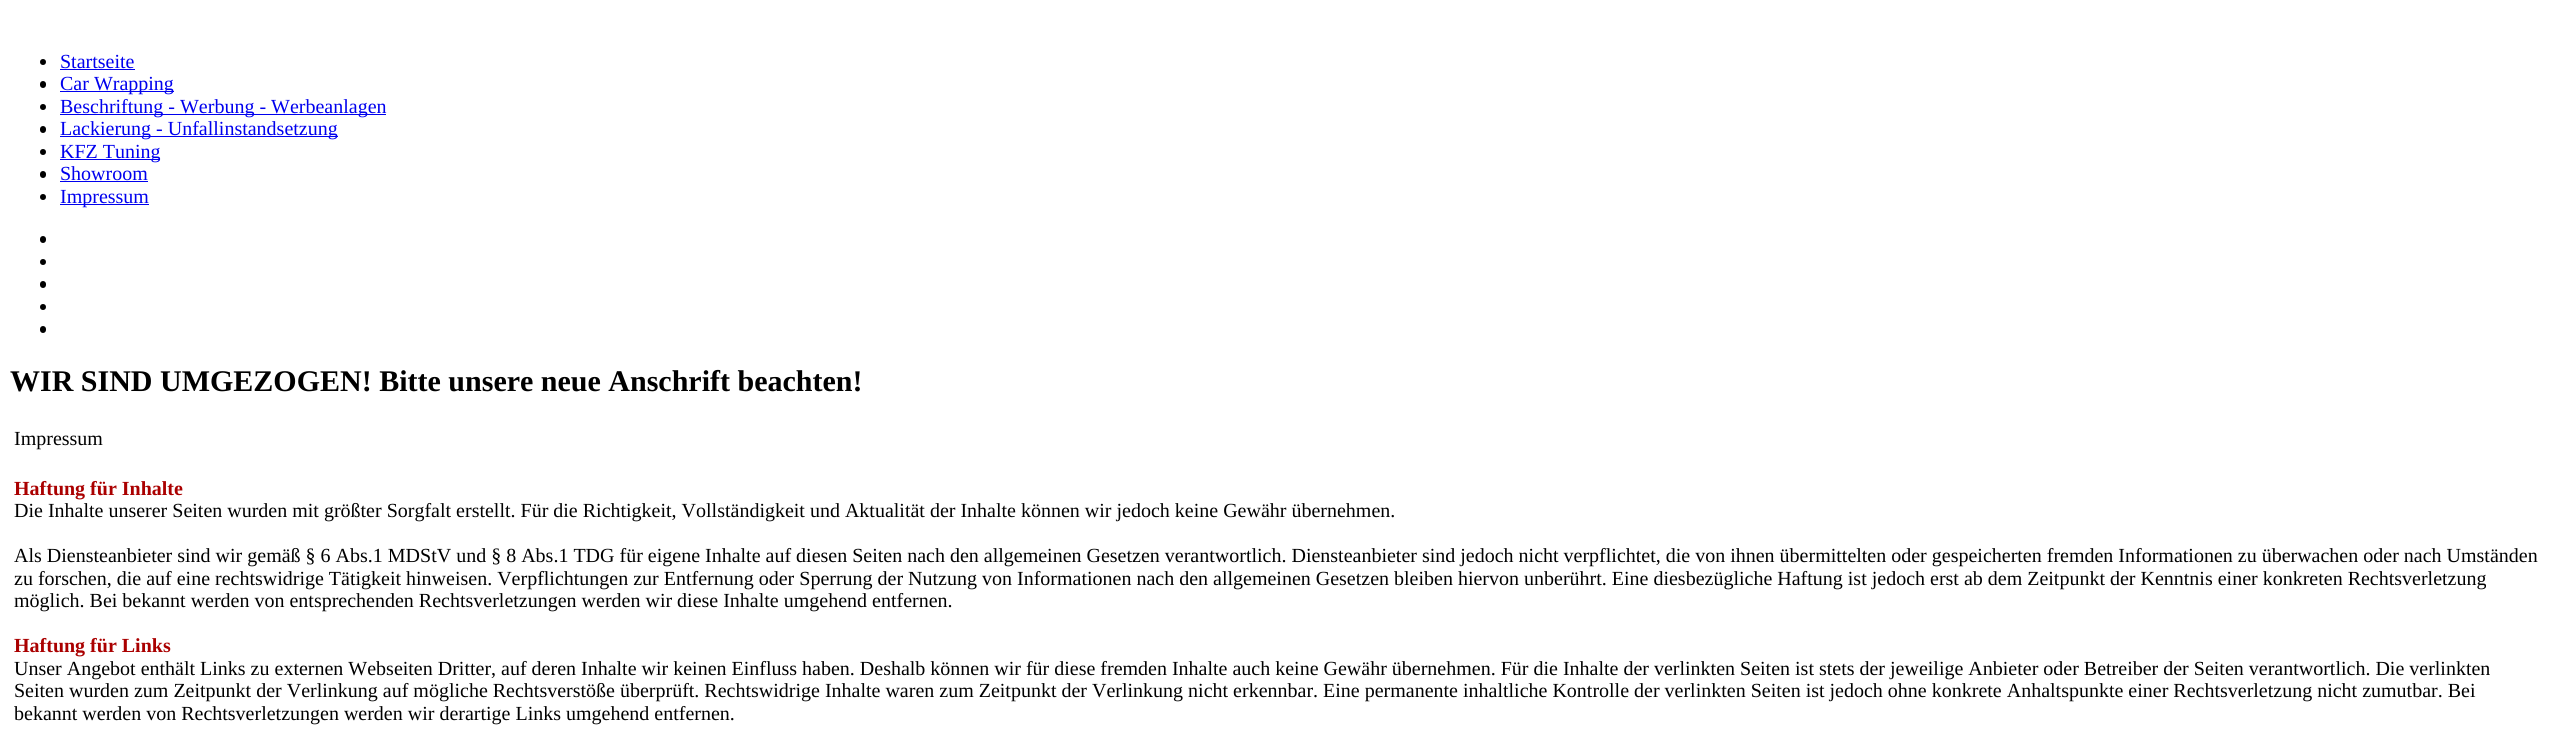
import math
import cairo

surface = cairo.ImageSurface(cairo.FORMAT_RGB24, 2551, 744)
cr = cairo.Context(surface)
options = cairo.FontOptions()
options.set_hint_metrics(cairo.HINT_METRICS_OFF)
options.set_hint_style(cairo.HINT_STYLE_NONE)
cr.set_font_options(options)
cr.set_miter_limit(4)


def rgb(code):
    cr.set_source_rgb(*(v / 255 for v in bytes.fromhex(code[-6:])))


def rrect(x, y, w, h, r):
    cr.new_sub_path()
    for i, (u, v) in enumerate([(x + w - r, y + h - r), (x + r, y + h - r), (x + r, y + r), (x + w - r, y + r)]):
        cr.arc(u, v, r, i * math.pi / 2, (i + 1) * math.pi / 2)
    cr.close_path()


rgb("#ffffff")
cr.paint()
rgb("#000000")
cr.arc(43, 62, 3, 0, 2 * math.pi)
cr.fill()
rgb("#0000ee")
cr.rectangle(60, 69, 75, 1)
cr.fill()
rgb("#000000")
rrect(40, 81, 6, 7, 3)
cr.fill()
rgb("#0000ee")
cr.rectangle(60, 91, 114, 1)
cr.fill()
rgb("#000000")
cr.arc(43, 107, 3, 0, 2 * math.pi)
cr.fill()
rgb("#0000ee")
cr.rectangle(60, 114, 326, 1)
cr.fill()
rgb("#000000")
rrect(40, 126, 6, 7, 3)
cr.fill()
rgb("#0000ee")
cr.rectangle(60, 136, 278, 1)
cr.fill()
rgb("#000000")
cr.arc(43, 152, 3, 0, 2 * math.pi)
cr.fill()
rgb("#0000ee")
cr.rectangle(60, 159, 100, 1)
cr.fill()
rgb("#000000")
rrect(40, 171, 6, 7, 3)
cr.fill()
rgb("#0000ee")
cr.rectangle(60, 181, 88, 1)
cr.fill()
rgb("#000000")
cr.arc(43, 197, 3, 0, 2 * math.pi)
cr.fill()
rgb("#0000ee")
cr.rectangle(60, 204, 89, 1)
cr.fill()
rgb("#000000")
rrect(40, 236, 6, 7, 3)
cr.fill()
cr.arc(43, 262, 3, 0, 2 * math.pi)
cr.fill()
rrect(40, 281, 6, 7, 3)
cr.fill()
cr.arc(43, 307, 3, 0, 2 * math.pi)
cr.fill()
rrect(40, 326, 6, 7, 3)
cr.fill()
cr.select_font_face("Liberation Serif")
cr.set_font_size(20)
rgb("#0000ee")
for x, y, s in [
    (60, 68, "Startseite"),
    (60, 90, "Car Wrapping"),
    (60, 113, "Beschriftung - Werbung - Werbeanlagen"),
    (60, 135, "Lackierung - Unfallinstandsetzung"),
    (60, 158, "KFZ Tuning"),
    (60, 180, "Showroom"),
    (60, 203, "Impressum"),
]:
    cr.move_to(x, y)
    cr.show_text(s)
cr.select_font_face("Liberation Serif", cairo.FONT_SLANT_NORMAL, cairo.FONT_WEIGHT_BOLD)
cr.set_font_size(30)
rgb("#000000")
cr.move_to(10, 391)
cr.show_text("WIR SIND UMGEZOGEN! Bitte unsere neue Anschrift beachten!")
cr.select_font_face("Liberation Serif")
cr.set_font_size(20)
cr.move_to(14, 445)
cr.show_text("Impressum")
cr.select_font_face("Liberation Serif", cairo.FONT_SLANT_NORMAL, cairo.FONT_WEIGHT_BOLD)
rgb("#aa0000")
cr.move_to(14, 495)
cr.show_text("Haftung für Inhalte")
cr.select_font_face("Liberation Serif")
rgb("#000000")
for x, y, s in [
    (14, 517, "Die Inhalte unserer Seiten wurden mit größter Sorgfalt erstellt. Für die Richtigkeit, Vollständigkeit und Aktualität der Inhalte können wir jedoch keine Gewähr übernehmen."),
    (14, 562, "Als Diensteanbieter sind wir gemäß § 6 Abs.1 MDStV und § 8 Abs.1 TDG für eigene Inhalte auf diesen Seiten nach den allgemeinen Gesetzen verantwortlich. Diensteanbieter sind jedoch nicht verpflichtet, die von ihnen übermittelten oder gespeicherten fremden Informationen zu überwachen oder nach Umständen"),
    (14, 585, "zu forschen, die auf eine rechtswidrige Tätigkeit hinweisen. Verpflichtungen zur Entfernung oder Sperrung der Nutzung von Informationen nach den allgemeinen Gesetzen bleiben hiervon unberührt. Eine diesbezügliche Haftung ist jedoch erst ab dem Zeitpunkt der Kenntnis einer konkreten Rechtsverletzung"),
    (14, 607, "möglich. Bei bekannt werden von entsprechenden Rechtsverletzungen werden wir diese Inhalte umgehend entfernen."),
]:
    cr.move_to(x, y)
    cr.show_text(s)
cr.select_font_face("Liberation Serif", cairo.FONT_SLANT_NORMAL, cairo.FONT_WEIGHT_BOLD)
rgb("#aa0000")
cr.move_to(14, 652)
cr.show_text("Haftung für Links")
cr.select_font_face("Liberation Serif")
rgb("#000000")
for x, y, s in [
    (14, 675, "Unser Angebot enthält Links zu externen Webseiten Dritter, auf deren Inhalte wir keinen Einfluss haben. Deshalb können wir für diese fremden Inhalte auch keine Gewähr übernehmen. Für die Inhalte der verlinkten Seiten ist stets der jeweilige Anbieter oder Betreiber der Seiten verantwortlich. Die verlinkten"),
    (14, 697, "Seiten wurden zum Zeitpunkt der Verlinkung auf mögliche Rechtsverstöße überprüft. Rechtswidrige Inhalte waren zum Zeitpunkt der Verlinkung nicht erkennbar. Eine permanente inhaltliche Kontrolle der verlinkten Seiten ist jedoch ohne konkrete Anhaltspunkte einer Rechtsverletzung nicht zumutbar. Bei"),
    (14, 720, "bekannt werden von Rechtsverletzungen werden wir derartige Links umgehend entfernen."),
]:
    cr.move_to(x, y)
    cr.show_text(s)
surface.write_to_png("page.png")
